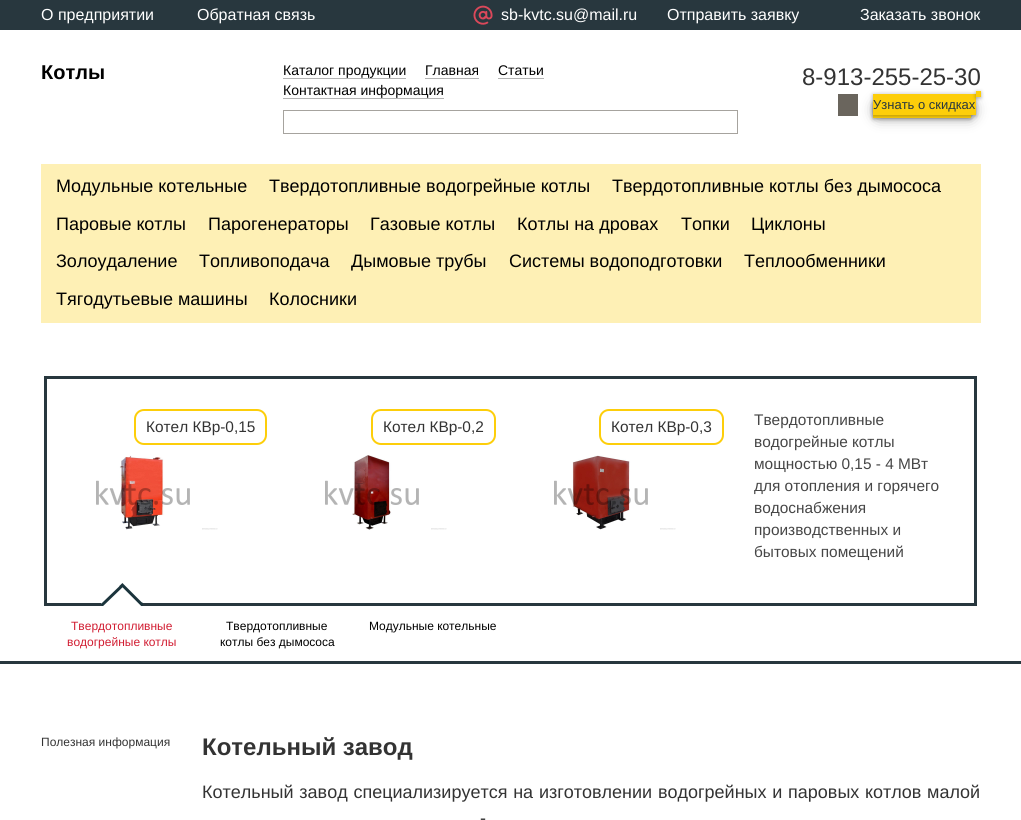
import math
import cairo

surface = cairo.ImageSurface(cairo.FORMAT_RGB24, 1021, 820)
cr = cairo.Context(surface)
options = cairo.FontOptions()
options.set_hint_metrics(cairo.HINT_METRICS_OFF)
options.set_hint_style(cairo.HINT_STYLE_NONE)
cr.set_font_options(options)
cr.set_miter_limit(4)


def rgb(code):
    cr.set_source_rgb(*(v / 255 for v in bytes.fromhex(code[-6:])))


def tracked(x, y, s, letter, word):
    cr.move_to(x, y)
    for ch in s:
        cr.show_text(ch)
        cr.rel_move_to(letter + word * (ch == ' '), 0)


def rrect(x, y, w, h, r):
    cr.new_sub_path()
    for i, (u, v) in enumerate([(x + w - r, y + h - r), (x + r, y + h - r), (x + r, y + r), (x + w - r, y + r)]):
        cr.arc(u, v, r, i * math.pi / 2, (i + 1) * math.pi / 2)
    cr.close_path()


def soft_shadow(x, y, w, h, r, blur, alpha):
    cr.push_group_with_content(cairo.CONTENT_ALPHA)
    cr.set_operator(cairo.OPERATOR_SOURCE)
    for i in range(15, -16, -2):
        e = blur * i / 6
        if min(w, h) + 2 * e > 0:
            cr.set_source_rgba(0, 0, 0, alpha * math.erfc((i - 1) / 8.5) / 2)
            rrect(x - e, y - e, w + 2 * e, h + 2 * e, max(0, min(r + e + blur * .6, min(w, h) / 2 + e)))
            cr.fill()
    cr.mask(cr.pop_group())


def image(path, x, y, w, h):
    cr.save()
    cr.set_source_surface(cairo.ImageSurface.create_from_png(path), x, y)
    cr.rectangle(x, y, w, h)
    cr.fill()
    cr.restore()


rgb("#ffffff")
cr.paint()
rgb("#28373e")
cr.rectangle(0, 0, 1021, 30)
cr.fill()
image("img/1.png", 473, 5, 20, 20)
for x, y, w, h, color in [
    (283, 78, 123, 1, "#b3b3b3"),
    (425, 78, 54, 1, "#b3b3b3"),
    (498, 78, 46, 1, "#b3b3b3"),
    (283, 98, 161, 1, "#b3b3b3"),
]:
    rgb(color)
    cr.rectangle(x, y, w, h)
    cr.fill()
cr.rectangle(283.5, 110.5, 454, 23)
rgb("#a6a39e")
cr.set_line_width(1)
cr.stroke()
rgb("#000000")
soft_shadow(878, 105, 93, 10, 5, 7.5, 0.6)
rgb("#6a655d")
cr.rectangle(838, 94, 20, 22)
cr.fill()
rgb("#000000")
soft_shadow(873, 103, 98, 16, 0, 2, 0.3)
rgb("#fdce0a")
cr.rectangle(873, 115, 98, 3)
cr.fill()
rgb("#000000")
soft_shadow(873, 95, 103, 21, 0, 2, 0.3)
rgb("#fdce0a")
cr.rectangle(873, 94, 103, 21)
cr.fill()
rgb("#000000")
soft_shadow(976, 92, 5, 6, 0, 2, 0.3)
for x, y, w, h, color in [
    (976, 91, 5, 6, "#fdce0a"),
    (41, 164, 940, 159, "#fef0b5"),
    (0, 661, 1021, 3, "#28373e"),
]:
    rgb(color)
    cr.rectangle(x, y, w, h)
    cr.fill()
cr.rectangle(45.5, 377.5, 930, 227)
cr.set_line_width(3)
cr.stroke()
rrect(135, 410, 131, 34, 9)
rgb("#fdce0a")
cr.set_line_width(2)
cr.stroke()
image("img/2.png", 96, 455, 122, 75)
rrect(372, 410, 123, 34, 9)
cr.stroke()
image("img/3.png", 325, 455, 122, 75)
rrect(600, 410, 123, 34, 9)
cr.stroke()
image("img/4.png", 554, 455, 122, 75)
image("img/5.png", 101, 583, 42, 23)
cr.select_font_face("Liberation Sans")
cr.set_font_size(16)
rgb("#ffffff")
for x, y, s in [
    (41, 20, "О предприятии"),
    (197, 20, "Обратная связь"),
    (501, 20, "sb-kvtc.su@mail.ru"),
    (667, 20, "Отправить заявку"),
    (860, 20, "Заказать звонок"),
]:
    cr.move_to(x, y)
    cr.show_text(s)
cr.select_font_face("Liberation Sans", cairo.FONT_SLANT_NORMAL, cairo.FONT_WEIGHT_BOLD)
cr.set_font_size(20)
rgb("#000000")
cr.move_to(41, 79)
cr.show_text("Котлы")
cr.select_font_face("Liberation Sans")
cr.set_font_size(14)
for x, y, s in [
    (283, 75, "Каталог продукции"),
    (425, 75, "Главная"),
    (498, 75, "Статьи"),
    (283, 95, "Контактная информация"),
]:
    cr.move_to(x, y)
    cr.show_text(s)
cr.set_font_size(24)
rgb("#333333")
cr.move_to(802, 85)
cr.show_text("8-913-255-25-30")
cr.set_font_size(13)
rgb("#28373e")
cr.move_to(873, 109)
cr.show_text("Узнать о скидках")
cr.set_font_size(18)
rgb("#000000")
for x, y, s in [
    (56, 192, "Модульные котельные"),
    (269, 192, "Твердотопливные водогрейные котлы"),
    (612, 192, "Твердотопливные котлы без дымососа"),
    (56, 230, "Паровые котлы"),
    (208, 230, "Парогенераторы"),
    (370, 230, "Газовые котлы"),
    (517, 230, "Котлы на дровах"),
    (681, 230, "Топки"),
    (751, 230, "Циклоны"),
    (56, 267, "Золоудаление"),
    (199, 267, "Топливоподача"),
    (351, 267, "Дымовые трубы"),
    (509, 267, "Системы водоподготовки"),
    (744, 267, "Теплообменники"),
    (56, 305, "Тягодутьевые машины"),
    (269, 305, "Колосники"),
]:
    cr.move_to(x, y)
    cr.show_text(s)
cr.set_font_size(15.4)
rgb("#333333")
for x, y, s in [
    (146, 432, "Котел КВр-0,15"),
    (383, 432, "Котел КВр-0,2"),
    (611, 432, "Котел КВр-0,3"),
]:
    cr.move_to(x, y)
    cr.show_text(s)
rgb("#464646")
for x, y, s in [
    (754, 425, "Твердотопливные"),
    (754, 447, "водогрейные котлы"),
    (754, 469, "мощностью 0,15 - 4 МВт"),
    (754, 491, "для отопления и горячего"),
    (754, 513, "водоснабжения"),
    (754, 535, "производственных и"),
    (754, 557, "бытовых помещений"),
]:
    cr.move_to(x, y)
    cr.show_text(s)
cr.set_font_size(12)
rgb("#d11d32")
cr.move_to(71, 630)
cr.show_text("Твердотопливные")
cr.move_to(67, 646)
cr.show_text("водогрейные котлы")
rgb("#000000")
for x, y, s in [
    (226, 630, "Твердотопливные"),
    (220, 646, "котлы без дымососа"),
    (369, 630, "Модульные котельные"),
]:
    cr.move_to(x, y)
    cr.show_text(s)
rgb("#333333")
cr.move_to(41, 746)
cr.show_text("Полезная информация")
cr.select_font_face("Liberation Sans", cairo.FONT_SLANT_NORMAL, cairo.FONT_WEIGHT_BOLD)
cr.set_font_size(24)
cr.move_to(202, 755)
cr.show_text("Котельный завод")
cr.select_font_face("Liberation Sans")
cr.set_font_size(18)
tracked(202, 798, "Котельный завод специализируется на изготовлении водогрейных и паровых котлов малой", 0, 0.75)
tracked(480, 824, "-", 0, 2)
surface.write_to_png("page.png")
